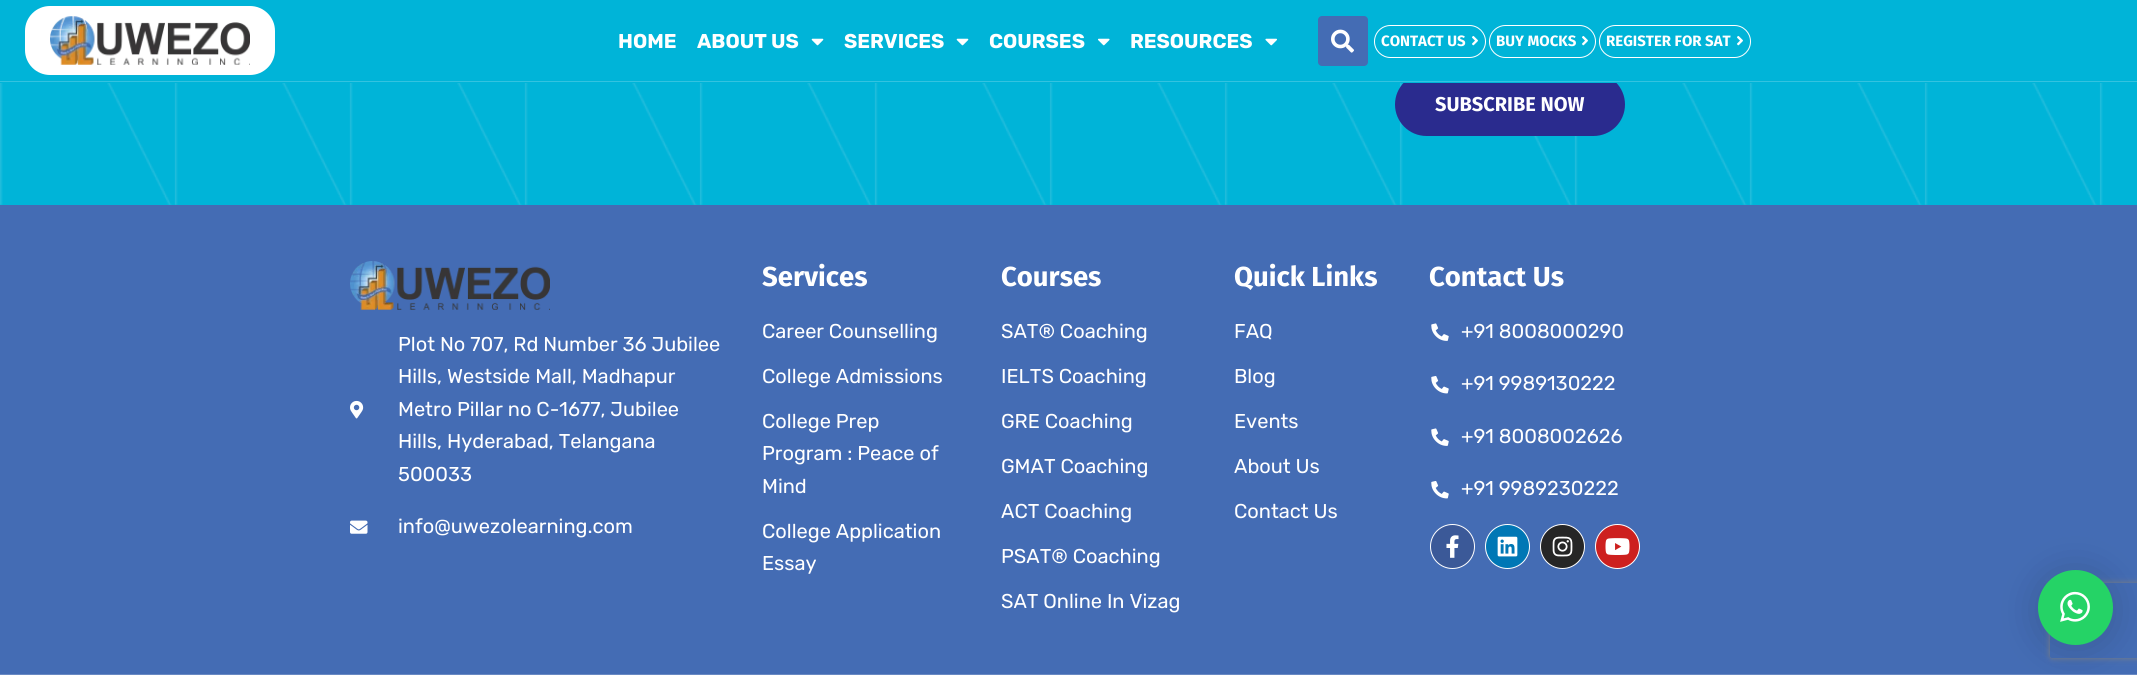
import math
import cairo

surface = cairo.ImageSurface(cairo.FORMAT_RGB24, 2137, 675)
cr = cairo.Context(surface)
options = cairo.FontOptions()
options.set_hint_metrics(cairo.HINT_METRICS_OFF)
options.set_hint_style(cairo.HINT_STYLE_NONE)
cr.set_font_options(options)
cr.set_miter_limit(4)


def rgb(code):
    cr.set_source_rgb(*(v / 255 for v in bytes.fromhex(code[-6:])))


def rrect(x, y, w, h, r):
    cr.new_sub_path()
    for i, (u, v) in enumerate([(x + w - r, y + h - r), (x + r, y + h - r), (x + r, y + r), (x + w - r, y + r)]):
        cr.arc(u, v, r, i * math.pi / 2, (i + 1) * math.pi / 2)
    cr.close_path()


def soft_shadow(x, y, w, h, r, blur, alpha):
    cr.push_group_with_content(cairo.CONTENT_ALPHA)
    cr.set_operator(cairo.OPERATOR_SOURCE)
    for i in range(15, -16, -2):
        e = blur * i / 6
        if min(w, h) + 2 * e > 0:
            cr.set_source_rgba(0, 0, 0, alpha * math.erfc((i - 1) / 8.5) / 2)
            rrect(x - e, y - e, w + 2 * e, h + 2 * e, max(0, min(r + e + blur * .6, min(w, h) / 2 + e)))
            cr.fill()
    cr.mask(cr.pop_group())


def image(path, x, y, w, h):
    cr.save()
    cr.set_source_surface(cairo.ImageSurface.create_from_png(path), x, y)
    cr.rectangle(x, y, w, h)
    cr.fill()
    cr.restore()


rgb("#00b4d8")
cr.paint()
image("img/7.png", 0, 83, 2103, 122)
rgb("#2a2b8e")
rrect(1395, 73, 230, 63, 31.5)
cr.fill()
rgb("#00b4d8")
cr.rectangle(1403, 73, 214, 10)
cr.fill()
rgb("#33c3e0")
cr.rectangle(0, 81, 2137, 1)
cr.fill()
rgb("#ffffff")
rrect(25, 6, 250, 69, 25)
cr.fill()
image("img/1.png", 50, 16, 200, 49)
image("img/2.png", 811, 38, 13, 8)
image("img/2.png", 956, 38, 13, 8)
image("img/3.png", 1098, 38, 12, 8)
image("img/4.png", 1265, 38, 12, 8)
rgb("#446cb4")
rrect(1318, 16, 50, 50, 4)
cr.fill()
image("img/5.png", 1331, 29, 23, 24)
rrect(1374.5, 25.5, 111, 32, 16)
rgb("#ffffff")
cr.set_line_width(1)
cr.stroke()
image("img/6.png", 1472, 36, 6, 10)
rrect(1489.5, 25.5, 106, 32, 16)
cr.stroke()
image("img/6.png", 1582, 36, 6, 10)
rrect(1599.5, 25.5, 151, 32, 16)
cr.stroke()
image("img/6.png", 1737, 36, 6, 10)
rgb("#446cb4")
cr.rectangle(0, 205, 2137, 469)
cr.fill()
rgb("#6989c3")
cr.rectangle(0, 674, 2137, 1)
cr.fill()
image("img/8.png", 350, 261, 200, 49)
image("img/9.png", 350, 400, 14, 19)
image("img/10.png", 350, 520, 18, 14)
image("img/11.png", 1431, 323, 18, 18)
image("img/12.png", 1431, 376, 18, 18)
image("img/11.png", 1431, 428, 18, 18)
image("img/12.png", 1431, 481, 18, 18)
rgb("#3b5998")
cr.arc(1452.5, 546.5, 22, 0, 2 * math.pi)
cr.fill_preserve()
rgb("#ffffff")
cr.stroke()
image("img/13.png", 1446, 535, 13, 23)
rgb("#0077b5")
cr.arc(1507.5, 546.5, 22, 0, 2 * math.pi)
cr.fill_preserve()
rgb("#ffffff")
cr.stroke()
image("img/14.png", 1497, 536, 21, 21)
rgb("#262626")
cr.arc(1562.5, 546.5, 22, 0, 2 * math.pi)
cr.fill_preserve()
rgb("#ffffff")
cr.stroke()
image("img/15.png", 1552, 536, 21, 21)
rgb("#cd201f")
cr.arc(1617.5, 546.5, 22, 0, 2 * math.pi)
cr.fill_preserve()
rgb("#ffffff")
cr.stroke()
image("img/16.png", 1605, 538, 25, 17)
rgb("#000000")
soft_shadow(2038, 573, 75, 75, 37.5, 20, 0.16)
cr.save()
cr.set_fill_rule(cairo.FILL_RULE_EVEN_ODD)
cr.new_path()
cr.move_to(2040, 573)
cr.line_to(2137, 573)
cr.line_to(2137, 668)
cr.line_to(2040, 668)
cr.close_path()
cr.move_to(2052.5, 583)
cr.line_to(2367.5, 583)
cr.curve_to(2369, 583, 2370, 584, 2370, 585.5)
cr.line_to(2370, 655.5)
cr.curve_to(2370, 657, 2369, 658, 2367.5, 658)
cr.line_to(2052.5, 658)
cr.curve_to(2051, 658, 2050, 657, 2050, 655.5)
cr.line_to(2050, 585.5)
cr.curve_to(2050, 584, 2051, 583, 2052.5, 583)
cr.close_path()
cr.clip()
rgb("#808080")
soft_shadow(2050, 583, 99, 75, 2.5, 3, 1)
cr.restore()
rgb("#25d366")
cr.arc(2075.5, 607.5, 37.5, 0, 2 * math.pi)
cr.fill()
image("img/17.png", 2060, 591, 30, 31)
cr.select_font_face("Rubik", cairo.FONT_SLANT_NORMAL, cairo.FONT_WEIGHT_BOLD)
cr.set_font_size(20)
rgb("#ffffff")
for x, y, s in [
    (618, 48, "HOME"),
    (697, 48, "ABOUT US"),
    (844, 48, "SERVICES"),
    (989, 48, "COURSES"),
    (1130, 48, "RESOURCES"),
]:
    cr.move_to(x, y)
    cr.show_text(s)
cr.select_font_face("Fira Sans", cairo.FONT_SLANT_NORMAL, cairo.FONT_WEIGHT_BOLD)
cr.set_font_size(15)
for x, y, s in [
    (1381, 46, "CONTACT US"),
    (1496, 46, "BUY MOCKS"),
    (1606, 46, "REGISTER FOR SAT"),
]:
    cr.move_to(x, y)
    cr.show_text(s)
cr.set_font_size(20)
cr.move_to(1435, 111)
cr.show_text("SUBSCRIBE NOW")
cr.select_font_face("Rubik")
for x, y, s in [
    (398, 351, "Plot No 707, Rd Number 36 Jubilee"),
    (398, 383, "Hills, Westside Mall, Madhapur"),
    (398, 416, "Metro Pillar no C-1677, Jubilee"),
    (398, 448, "Hills, Hyderabad, Telangana"),
    (398, 481, "500033"),
    (398, 533, "info@uwezolearning.com"),
]:
    cr.move_to(x, y)
    cr.show_text(s)
cr.select_font_face("Fira Sans", cairo.FONT_SLANT_NORMAL, cairo.FONT_WEIGHT_BOLD)
cr.set_font_size(27.5)
cr.move_to(762, 286)
cr.show_text("Services")
cr.select_font_face("Rubik")
cr.set_font_size(20)
for x, y, s in [
    (762, 338, "Career Counselling"),
    (762, 383, "College Admissions"),
    (762, 428, "College Prep"),
    (762, 460, "Program : Peace of"),
    (762, 493, "Mind"),
    (762, 538, "College Application"),
    (762, 570, "Essay"),
]:
    cr.move_to(x, y)
    cr.show_text(s)
cr.select_font_face("Fira Sans", cairo.FONT_SLANT_NORMAL, cairo.FONT_WEIGHT_BOLD)
cr.set_font_size(27.5)
cr.move_to(1001, 286)
cr.show_text("Courses")
cr.select_font_face("Rubik")
cr.set_font_size(20)
for x, y, s in [
    (1001, 338, "SAT® Coaching"),
    (1001, 383, "IELTS Coaching"),
    (1001, 428, "GRE Coaching"),
    (1001, 473, "GMAT Coaching"),
    (1001, 518, "ACT Coaching"),
    (1001, 563, "PSAT® Coaching"),
    (1001, 608, "SAT Online In Vizag"),
]:
    cr.move_to(x, y)
    cr.show_text(s)
cr.select_font_face("Fira Sans", cairo.FONT_SLANT_NORMAL, cairo.FONT_WEIGHT_BOLD)
cr.set_font_size(27.5)
cr.move_to(1234, 286)
cr.show_text("Quick Links")
cr.select_font_face("Rubik")
cr.set_font_size(20)
for x, y, s in [
    (1234, 338, "FAQ"),
    (1234, 383, "Blog"),
    (1234, 428, "Events"),
    (1234, 473, "About Us"),
    (1234, 518, "Contact Us"),
]:
    cr.move_to(x, y)
    cr.show_text(s)
cr.select_font_face("Fira Sans", cairo.FONT_SLANT_NORMAL, cairo.FONT_WEIGHT_BOLD)
cr.set_font_size(27.5)
cr.move_to(1429, 286)
cr.show_text("Contact Us")
cr.select_font_face("Rubik")
cr.set_font_size(20)
for x, y, s in [
    (1461, 338, "+91 8008000290"),
    (1461, 390, "+91 9989130222"),
    (1461, 443, "+91 8008002626"),
    (1461, 495, "+91 9989230222"),
]:
    cr.move_to(x, y)
    cr.show_text(s)
surface.write_to_png("page.png")
